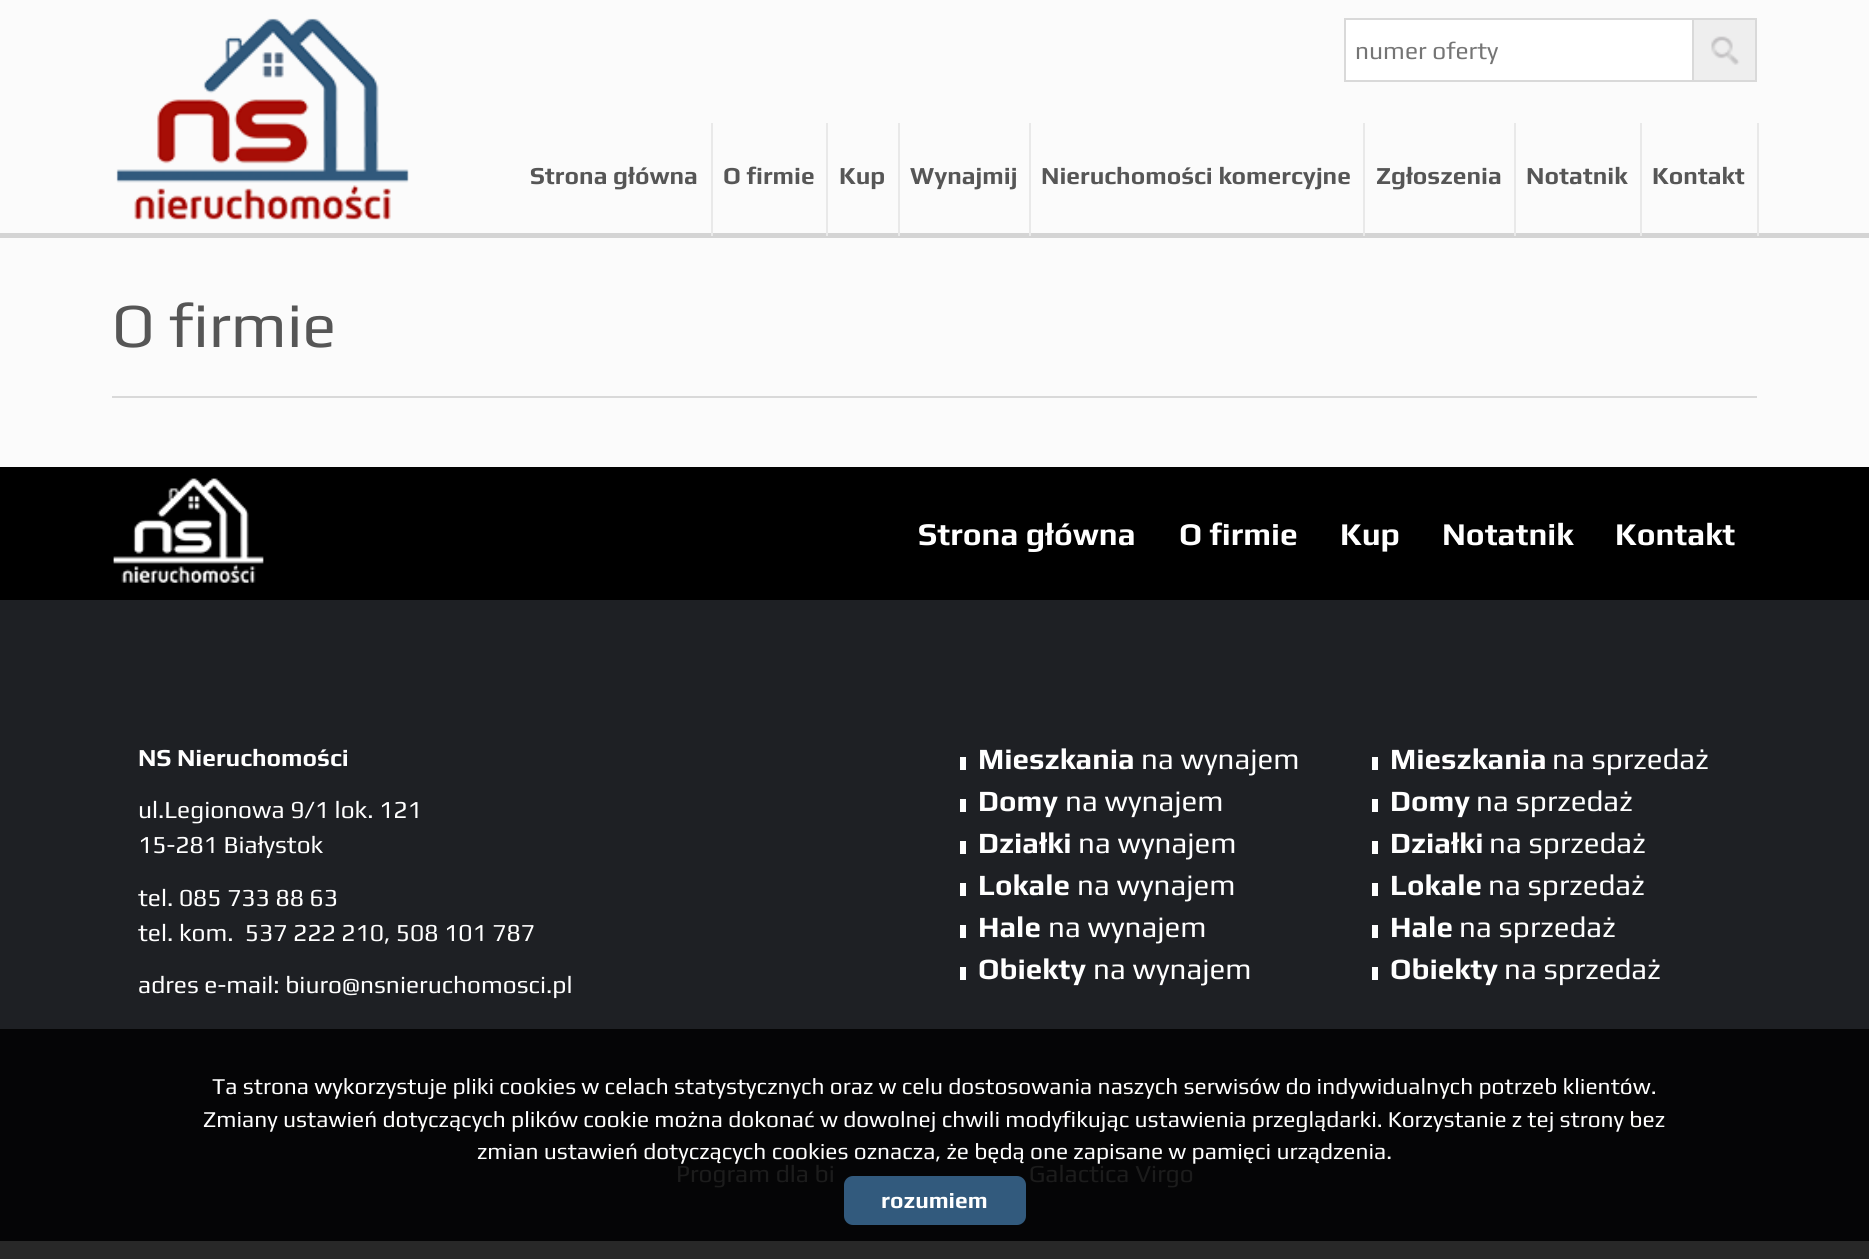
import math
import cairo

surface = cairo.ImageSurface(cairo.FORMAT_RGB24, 1869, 1259)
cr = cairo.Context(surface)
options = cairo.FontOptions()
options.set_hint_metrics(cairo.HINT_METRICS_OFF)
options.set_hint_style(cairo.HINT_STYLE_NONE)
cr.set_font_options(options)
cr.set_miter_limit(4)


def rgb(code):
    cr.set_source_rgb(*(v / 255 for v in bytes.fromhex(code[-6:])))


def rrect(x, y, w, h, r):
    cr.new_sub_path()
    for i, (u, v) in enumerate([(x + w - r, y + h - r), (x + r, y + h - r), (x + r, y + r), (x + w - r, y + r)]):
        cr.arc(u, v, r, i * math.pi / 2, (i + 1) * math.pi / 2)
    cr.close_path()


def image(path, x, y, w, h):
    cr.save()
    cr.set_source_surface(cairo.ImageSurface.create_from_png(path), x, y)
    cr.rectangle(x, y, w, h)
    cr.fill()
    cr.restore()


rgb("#fbfbfb")
cr.paint()
rgb("#282828")
cr.rectangle(0, 1241, 1869, 18)
cr.fill()
rgb("#d4d4d4")
cr.rectangle(0, 233, 1869, 5)
cr.fill()
image("img/1.png", 116, 18, 293, 202)
rgb("#eeeeee")
cr.rectangle(1694, 20, 61, 60)
cr.fill()
image("img/2.png", 1711, 36, 29, 29)
cr.rectangle(1693, 19, 63, 62)
rgb("#d9d9d9")
cr.stroke()
rgb("#ffffff")
cr.rectangle(1345, 19, 348, 62)
cr.fill_preserve()
rgb("#d9d9d9")
cr.stroke()
for x, y, w, h, color in [
    (711, 123, 2, 113, "#e9e9e9"),
    (826, 123, 2, 113, "#e9e9e9"),
    (898, 123, 2, 113, "#e9e9e9"),
    (1029, 123, 2, 113, "#e9e9e9"),
    (1363, 123, 2, 113, "#e9e9e9"),
    (1514, 123, 2, 113, "#e9e9e9"),
    (1640, 123, 2, 113, "#e9e9e9"),
    (1757, 123, 2, 113, "#e9e9e9"),
    (112, 396, 1645, 2, "#d9d9d9"),
    (0, 467, 1869, 133, "#000000"),
]:
    rgb(color)
    cr.rectangle(x, y, w, h)
    cr.fill()
image("img/3.png", 113, 478, 151, 105)
for x, y, w, h, color in [
    (0, 600, 1869, 429, "#1e2024"),
    (0, 1029, 1869, 212, "#050506"),
    (960, 757, 6, 13, "#ffffff"),
    (960, 799, 6, 13, "#ffffff"),
    (960, 841, 6, 13, "#ffffff"),
    (960, 883, 6, 13, "#ffffff"),
    (960, 925, 6, 13, "#ffffff"),
    (960, 967, 6, 13, "#ffffff"),
    (1372, 757, 6, 13, "#ffffff"),
    (1372, 799, 6, 13, "#ffffff"),
    (1372, 841, 6, 13, "#ffffff"),
    (1372, 883, 6, 13, "#ffffff"),
    (1372, 925, 6, 13, "#ffffff"),
    (1372, 967, 6, 13, "#ffffff"),
]:
    rgb(color)
    cr.rectangle(x, y, w, h)
    cr.fill()
rgb("#325a7d")
rrect(844, 1176, 182, 49, 9)
cr.fill()
cr.select_font_face("Play")
cr.set_font_size(24.5)
rgb("#757575")
cr.move_to(1355, 59)
cr.show_text("numer oferty")
cr.select_font_face("Play", cairo.FONT_SLANT_NORMAL, cairo.FONT_WEIGHT_BOLD)
rgb("#565656")
for x, y, s in [
    (530, 184, "Strona główna"),
    (723, 184, "O firmie"),
    (839, 184, "Kup"),
    (910, 184, "Wynajmij"),
    (1041, 184, "Nieruchomości komercyjne"),
    (1376, 184, "Zgłoszenia"),
    (1526, 184, "Notatnik"),
    (1652, 184, "Kontakt"),
]:
    cr.move_to(x, y)
    cr.show_text(s)
cr.select_font_face("Play")
cr.set_font_size(63)
cr.move_to(112, 347)
cr.show_text("O firmie")
cr.select_font_face("Play", cairo.FONT_SLANT_NORMAL, cairo.FONT_WEIGHT_BOLD)
cr.set_font_size(31.75)
rgb("#ffffff")
for x, y, s in [
    (918, 545, "Strona główna"),
    (1179, 545, "O firmie"),
    (1340, 545, "Kup"),
    (1442, 545, "Notatnik"),
    (1615, 545, "Kontakt"),
]:
    cr.move_to(x, y)
    cr.show_text(s)
cr.set_font_size(24.5)
cr.move_to(138, 766)
cr.show_text("NS Nieruchomości")
cr.select_font_face("Play")
for x, y, s in [
    (138, 818, "ul.Legionowa 9/1 lok. 121"),
    (138, 853, "15-281 Białystok"),
    (138, 906, "tel. 085 733 88 63"),
    (138, 941, "tel. kom.  537 222 210, 508 101 787"),
    (138, 993, "adres e-mail: biuro@nsnieruchomosci.pl"),
]:
    cr.move_to(x, y)
    cr.show_text(s)
cr.select_font_face("Play", cairo.FONT_SLANT_NORMAL, cairo.FONT_WEIGHT_BOLD)
cr.set_font_size(29.5)
cr.move_to(978, 769)
cr.show_text("Mieszkania")
cr.select_font_face("Play")
cr.move_to(1141, 769)
cr.show_text("na wynajem")
cr.select_font_face("Play", cairo.FONT_SLANT_NORMAL, cairo.FONT_WEIGHT_BOLD)
cr.move_to(978, 811)
cr.show_text("Domy")
cr.select_font_face("Play")
cr.move_to(1065, 811)
cr.show_text("na wynajem")
cr.select_font_face("Play", cairo.FONT_SLANT_NORMAL, cairo.FONT_WEIGHT_BOLD)
cr.move_to(978, 853)
cr.show_text("Działki")
cr.select_font_face("Play")
cr.move_to(1078, 853)
cr.show_text("na wynajem")
cr.select_font_face("Play", cairo.FONT_SLANT_NORMAL, cairo.FONT_WEIGHT_BOLD)
cr.move_to(978, 895)
cr.show_text("Lokale")
cr.select_font_face("Play")
cr.move_to(1077, 895)
cr.show_text("na wynajem")
cr.select_font_face("Play", cairo.FONT_SLANT_NORMAL, cairo.FONT_WEIGHT_BOLD)
cr.move_to(978, 937)
cr.show_text("Hale")
cr.select_font_face("Play")
cr.move_to(1048, 937)
cr.show_text("na wynajem")
cr.select_font_face("Play", cairo.FONT_SLANT_NORMAL, cairo.FONT_WEIGHT_BOLD)
cr.move_to(978, 979)
cr.show_text("Obiekty")
cr.select_font_face("Play")
cr.move_to(1093, 979)
cr.show_text("na wynajem")
cr.select_font_face("Play", cairo.FONT_SLANT_NORMAL, cairo.FONT_WEIGHT_BOLD)
cr.move_to(1390, 769)
cr.show_text("Mieszkania")
cr.select_font_face("Play")
cr.move_to(1552, 769)
cr.show_text("na sprzedaż")
cr.select_font_face("Play", cairo.FONT_SLANT_NORMAL, cairo.FONT_WEIGHT_BOLD)
cr.move_to(1390, 811)
cr.show_text("Domy")
cr.select_font_face("Play")
cr.move_to(1476, 811)
cr.show_text("na sprzedaż")
cr.select_font_face("Play", cairo.FONT_SLANT_NORMAL, cairo.FONT_WEIGHT_BOLD)
cr.move_to(1390, 853)
cr.show_text("Działki")
cr.select_font_face("Play")
cr.move_to(1489, 853)
cr.show_text("na sprzedaż")
cr.select_font_face("Play", cairo.FONT_SLANT_NORMAL, cairo.FONT_WEIGHT_BOLD)
cr.move_to(1390, 895)
cr.show_text("Lokale")
cr.select_font_face("Play")
cr.move_to(1488, 895)
cr.show_text("na sprzedaż")
cr.select_font_face("Play", cairo.FONT_SLANT_NORMAL, cairo.FONT_WEIGHT_BOLD)
cr.move_to(1390, 937)
cr.show_text("Hale")
cr.select_font_face("Play")
cr.move_to(1459, 937)
cr.show_text("na sprzedaż")
cr.select_font_face("Play", cairo.FONT_SLANT_NORMAL, cairo.FONT_WEIGHT_BOLD)
cr.move_to(1390, 979)
cr.show_text("Obiekty")
cr.select_font_face("Play")
cr.move_to(1504, 979)
cr.show_text("na sprzedaż")
cr.set_font_size(22.75)
for x, y, s in [
    (212, 1094, "Ta strona wykorzystuje pliki cookies w celach statystycznych oraz w celu dostosowania naszych serwisów do indywidualnych potrzeb klientów."),
    (203, 1127, "Zmiany ustawień dotyczących plików cookie można dokonać w dowolnej chwili modyfikując ustawienia przeglądarki. Korzystanie z tej strony bez"),
    (477, 1159, "zmian ustawień dotyczących cookies oznacza, że będą one zapisane w pamięci urządzenia."),
]:
    cr.move_to(x, y)
    cr.show_text(s)
cr.select_font_face("Play", cairo.FONT_SLANT_NORMAL, cairo.FONT_WEIGHT_BOLD)
cr.move_to(881, 1208)
cr.show_text("rozumiem")
cr.select_font_face("Play")
cr.set_font_size(24.5)
rgb("#1c1c1c")
cr.move_to(676, 1182)
cr.show_text("Program dla bi")
cr.move_to(1029, 1182)
cr.show_text("Galactica Virgo")
surface.write_to_png("page.png")
